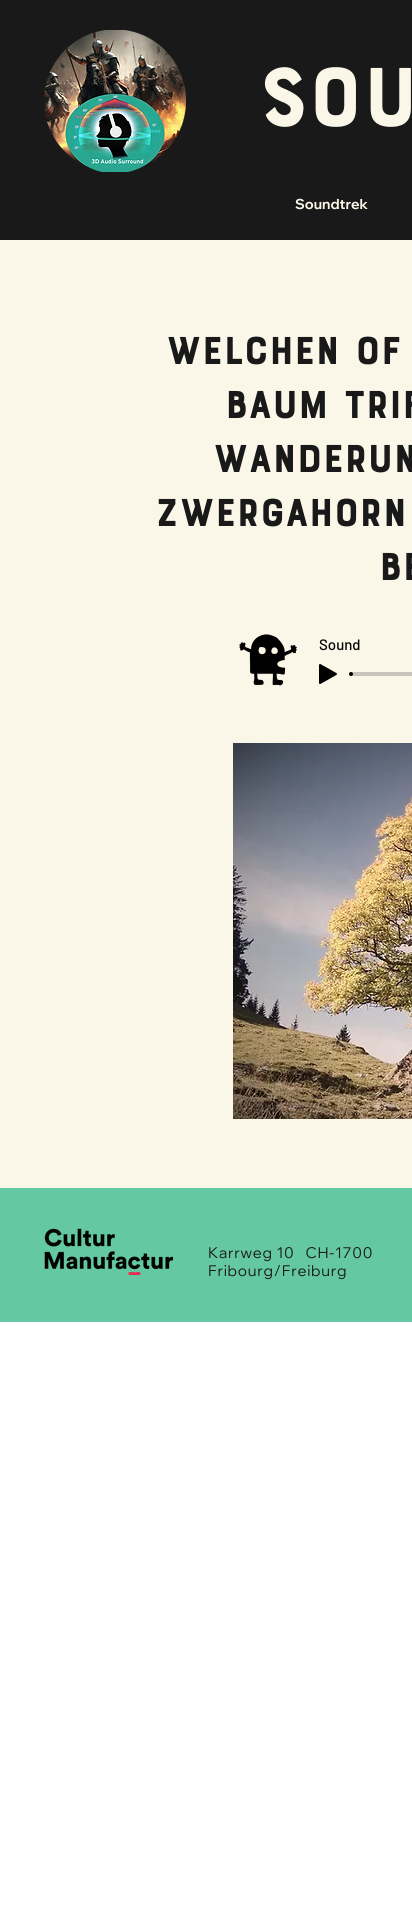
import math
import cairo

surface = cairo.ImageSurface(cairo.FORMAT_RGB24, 412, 1911)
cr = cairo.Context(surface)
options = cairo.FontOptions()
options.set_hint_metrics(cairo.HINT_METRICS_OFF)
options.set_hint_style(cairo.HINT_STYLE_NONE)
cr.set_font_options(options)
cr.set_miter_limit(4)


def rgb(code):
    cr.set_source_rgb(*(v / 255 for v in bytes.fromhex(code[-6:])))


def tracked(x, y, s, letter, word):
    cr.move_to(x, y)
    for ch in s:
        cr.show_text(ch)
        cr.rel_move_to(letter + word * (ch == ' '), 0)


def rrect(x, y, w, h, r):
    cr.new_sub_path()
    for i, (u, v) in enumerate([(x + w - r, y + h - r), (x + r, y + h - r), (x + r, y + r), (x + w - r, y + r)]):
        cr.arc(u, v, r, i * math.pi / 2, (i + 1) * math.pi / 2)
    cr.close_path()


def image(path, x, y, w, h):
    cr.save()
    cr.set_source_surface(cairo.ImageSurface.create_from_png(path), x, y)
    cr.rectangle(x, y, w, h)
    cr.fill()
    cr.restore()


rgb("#ffffff")
cr.paint()
rgb("#191919")
cr.rectangle(0, 0, 412, 240)
cr.fill()
image("img/1.png", 44, 30, 142, 142)
rgb("#faf7e8")
cr.rectangle(0, 240, 412, 948)
cr.fill()
image("img/2.png", 239, 634, 58, 52)
image("img/3.png", 319, 664, 18, 20)
rgb("#c8c6ba")
rrect(351, 672, 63, 4, 2)
cr.fill()
rgb("#000000")
cr.arc(351, 674, 2, 0, 2 * math.pi)
cr.fill()
image("img/4.png", 233, 743, 179, 376)
rgb("#64c9a3")
cr.rectangle(0, 1188, 412, 134)
cr.fill()
image("img/5.png", 44, 1228, 129, 47)
cr.select_font_face("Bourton")
cr.set_font_size(88)
rgb("#faf7e8")
cr.move_to(260, 126)
cr.show_text("SOU")
cr.select_font_face("Wix Madefor Display", cairo.FONT_SLANT_NORMAL, cairo.FONT_WEIGHT_BOLD)
cr.set_font_size(14)
cr.move_to(295, 209)
cr.show_text("Soundtrek")
cr.select_font_face("Bourton")
cr.set_font_size(41)
rgb("#191919")
for x, y, s in [
    (166, 364, "Welchen of"),
    (225, 418, "Baum trif"),
    (213, 472, "Wanderun"),
    (155, 526, "Zwergahorn"),
    (379, 580, "Be"),
]:
    cr.move_to(x, y)
    cr.show_text(s)
cr.select_font_face("Barlow Medium")
cr.set_font_size(15)
rgb("#000000")
cr.move_to(319, 650)
cr.show_text("Sound")
cr.select_font_face("Wix Madefor Display")
rgb("#191919")
tracked(208, 1258, "Karrweg 10   CH-1700", 0.75, 0)
tracked(208, 1276, "Fribourg/Freiburg", 0.75, 0)
surface.write_to_png("page.png")
